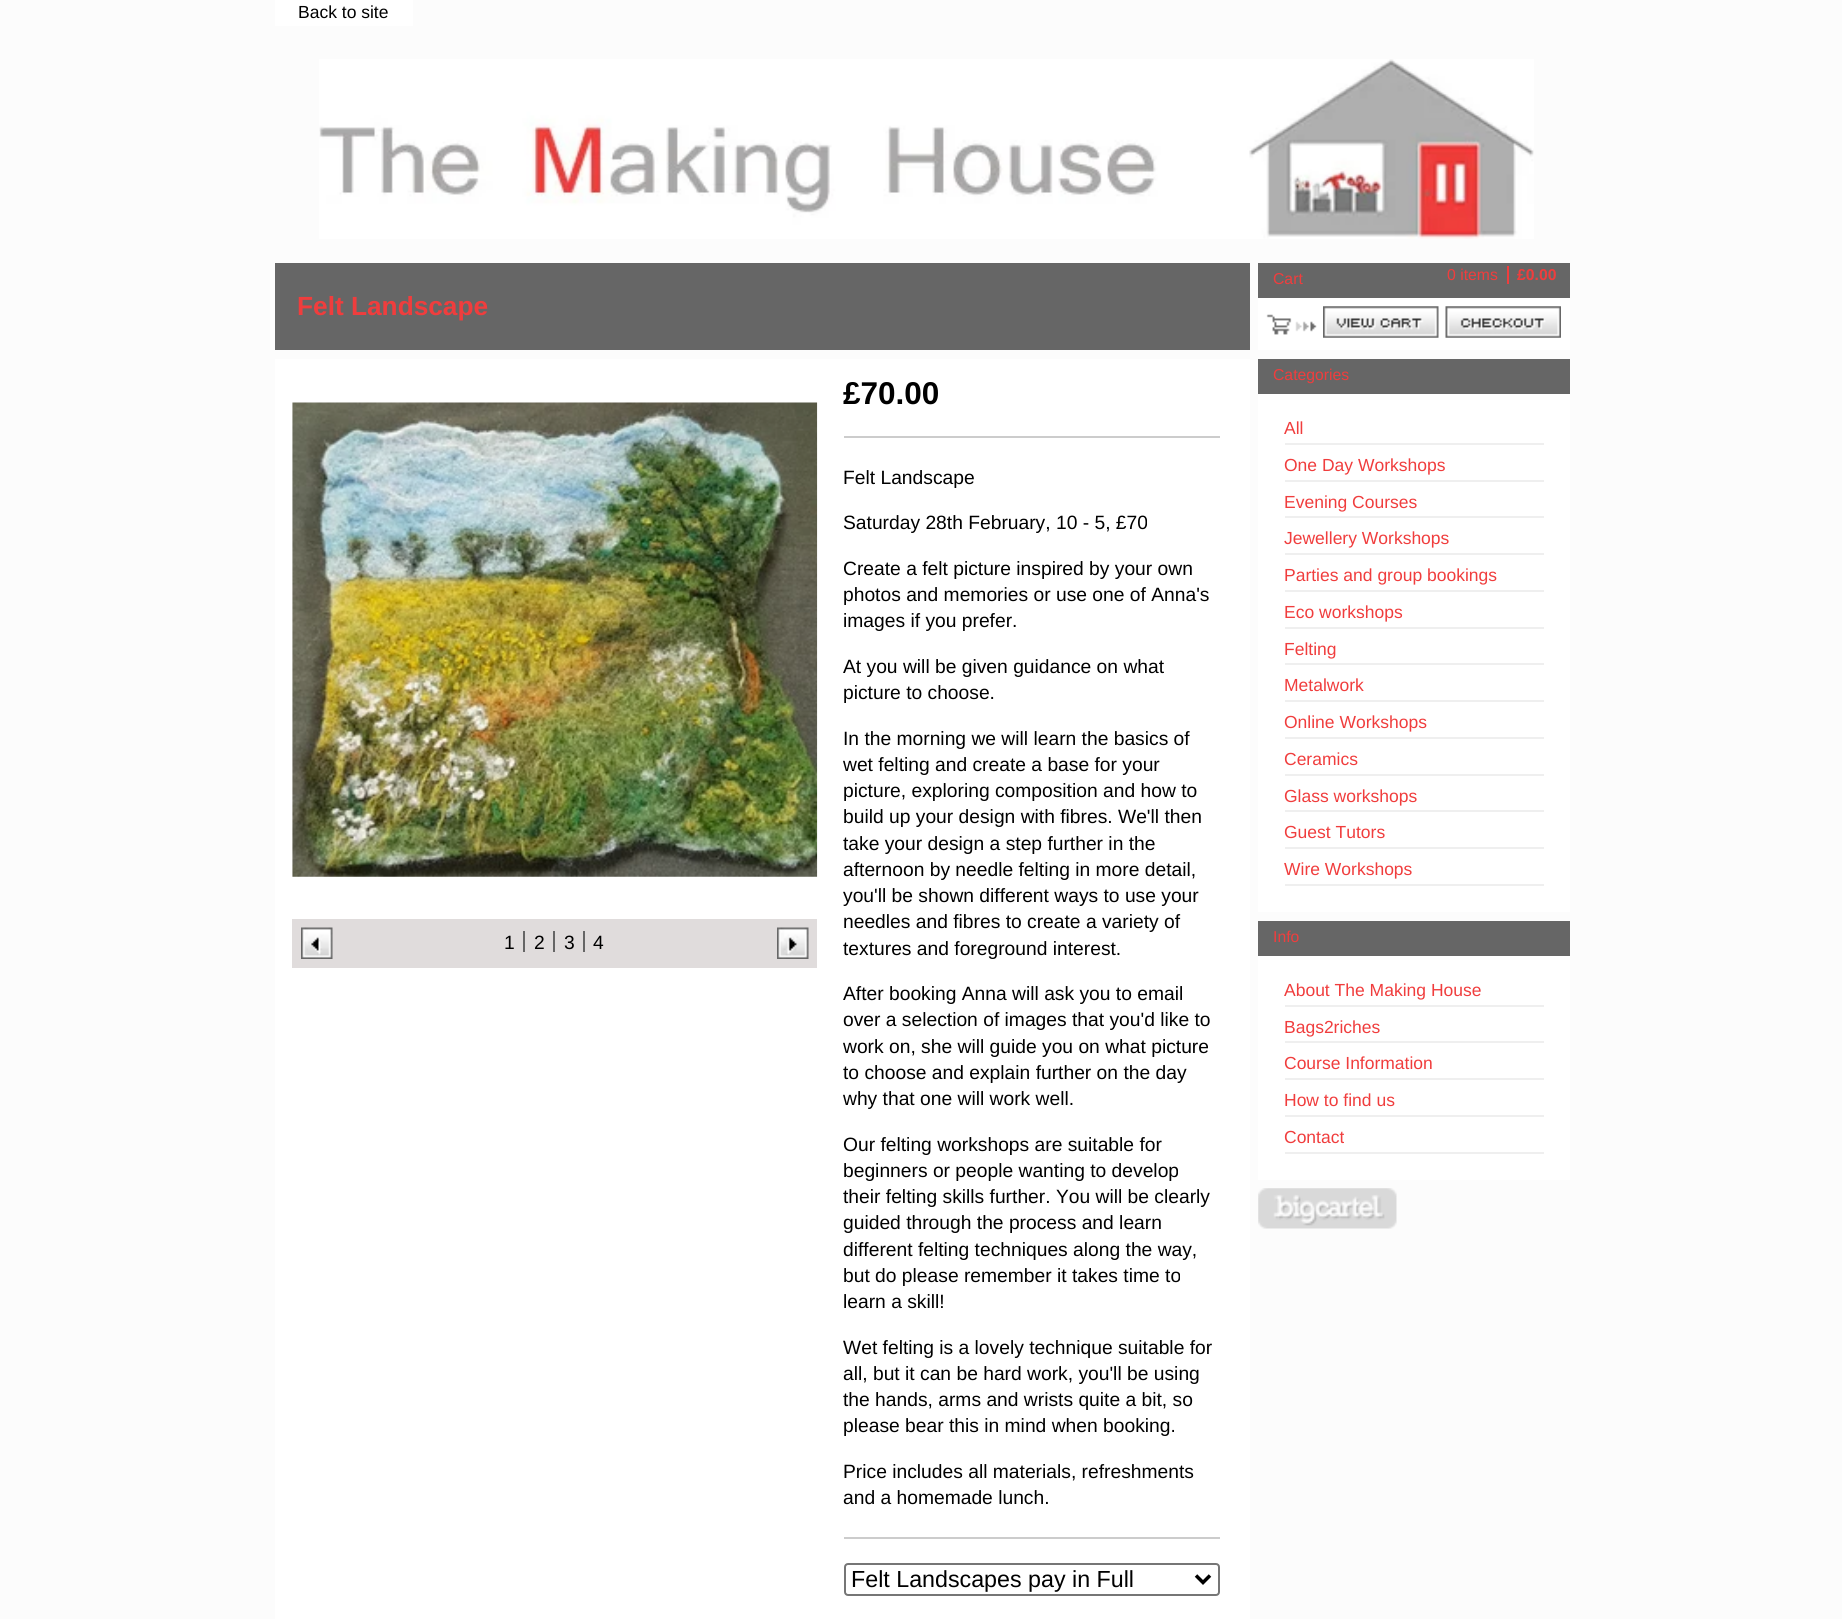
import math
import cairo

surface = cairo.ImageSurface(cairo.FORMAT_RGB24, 1842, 1619)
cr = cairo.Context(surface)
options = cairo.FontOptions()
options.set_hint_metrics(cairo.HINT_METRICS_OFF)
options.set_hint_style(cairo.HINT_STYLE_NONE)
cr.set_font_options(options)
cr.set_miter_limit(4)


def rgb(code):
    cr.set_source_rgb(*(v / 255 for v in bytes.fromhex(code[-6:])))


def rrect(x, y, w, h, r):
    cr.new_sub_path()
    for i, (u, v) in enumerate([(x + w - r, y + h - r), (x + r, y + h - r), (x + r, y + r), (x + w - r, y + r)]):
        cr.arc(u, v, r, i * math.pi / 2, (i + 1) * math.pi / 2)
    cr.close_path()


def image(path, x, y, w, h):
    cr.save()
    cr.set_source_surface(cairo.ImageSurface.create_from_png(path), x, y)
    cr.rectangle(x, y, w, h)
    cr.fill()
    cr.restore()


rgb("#fcfcfc")
cr.paint()
rgb("#ffffff")
cr.rectangle(275, 0, 138, 26)
cr.fill()
image("img/1.png", 319, 59, 1215, 180)
rgb("#666666")
cr.rectangle(275, 263, 975, 87)
cr.fill()
rgb("#ffffff")
cr.rectangle(275, 359, 975, 1260)
cr.fill()
image("img/2.png", 292, 402, 526, 475)
rgb("#e0dcdc")
cr.rectangle(292, 919, 525, 49)
cr.fill()
image("img/3.png", 301, 927, 32, 32)
for x, y, w, h, color in [
    (523, 931, 2, 21, "#666666"),
    (553, 931, 2, 21, "#666666"),
    (583, 931, 2, 21, "#666666"),
]:
    rgb(color)
    cr.rectangle(x, y, w, h)
    cr.fill()
image("img/4.png", 777, 927, 32, 32)
rgb("#cccccc")
cr.rectangle(844, 436, 376, 2)
cr.fill()
cr.rectangle(844, 1537, 376, 2)
cr.fill()
rrect(845, 1564, 374, 31, 3)
rgb("#767676")
cr.stroke()
cr.new_path()
cr.move_to(1196, 1575.5)
cr.line_to(1203, 1582.5)
cr.line_to(1210, 1575.5)
rgb("#000000")
cr.set_line_width(3.5)
cr.stroke()
rgb("#ffffff")
cr.rectangle(1258, 298, 312, 52)
cr.fill()
image("img/5.png", 1266, 314, 51, 21)
rgb("#666666")
cr.rectangle(1258, 263, 312, 35)
cr.fill()
rgb("#f03d3d")
cr.rectangle(1507, 266, 2, 18)
cr.fill()
image("img/6.png", 1323, 306, 116, 32)
image("img/7.png", 1445, 306, 116, 32)
for x, y, w, h, color in [
    (1258, 394, 312, 518, "#ffffff"),
    (1258, 359, 312, 35, "#666666"),
    (1285, 443, 259, 2, "#efefef"),
    (1285, 480, 259, 2, "#efefef"),
    (1285, 516, 259, 2, "#efefef"),
    (1285, 553, 259, 2, "#efefef"),
    (1285, 590, 259, 2, "#efefef"),
    (1285, 627, 259, 2, "#efefef"),
    (1285, 663, 259, 2, "#efefef"),
    (1285, 700, 259, 2, "#efefef"),
    (1285, 737, 259, 2, "#efefef"),
    (1285, 774, 259, 2, "#efefef"),
    (1285, 810, 259, 2, "#efefef"),
    (1285, 847, 259, 2, "#efefef"),
    (1285, 884, 259, 2, "#efefef"),
    (1258, 956, 312, 224, "#ffffff"),
    (1258, 921, 312, 35, "#666666"),
    (1285, 1005, 259, 2, "#efefef"),
    (1285, 1041, 259, 2, "#efefef"),
    (1285, 1078, 259, 2, "#efefef"),
    (1285, 1115, 259, 2, "#efefef"),
    (1285, 1152, 259, 2, "#efefef"),
]:
    rgb(color)
    cr.rectangle(x, y, w, h)
    cr.fill()
image("img/8.png", 1258, 1188, 139, 41)
cr.select_font_face("Liberation Sans")
cr.set_font_size(17.5)
rgb("#000000")
cr.move_to(298, 18)
cr.show_text("Back to site")
cr.select_font_face("Liberation Sans", cairo.FONT_SLANT_NORMAL, cairo.FONT_WEIGHT_BOLD)
cr.set_font_size(26.25)
rgb("#f03d3d")
cr.move_to(297, 315)
cr.show_text("Felt Landscape")
cr.select_font_face("Liberation Sans")
cr.set_font_size(19.25)
rgb("#000000")
for x, y, s in [
    (504, 949, "1"),
    (534, 949, "2"),
    (564, 949, "3"),
    (593, 949, "4"),
]:
    cr.move_to(x, y)
    cr.show_text(s)
cr.select_font_face("Liberation Sans", cairo.FONT_SLANT_NORMAL, cairo.FONT_WEIGHT_BOLD)
cr.set_font_size(31.5)
cr.move_to(843, 404)
cr.show_text("£70.00")
cr.select_font_face("Liberation Sans")
cr.set_font_size(19.25)
for x, y, s in [
    (843, 484, "Felt Landscape"),
    (843, 529, "Saturday 28th February, 10 - 5, £70"),
    (843, 575, "Create a felt picture inspired by your own"),
    (843, 601, "photos and memories or use one of Anna's"),
    (843, 627, "images if you prefer."),
    (843, 673, "At you will be given guidance on what"),
    (843, 699, "picture to choose."),
    (843, 745, "In the morning we will learn the basics of"),
    (843, 771, "wet felting and create a base for your"),
    (843, 797, "picture, exploring composition and how to"),
    (843, 823, "build up your design with fibres. We'll then"),
    (843, 850, "take your design a step further in the"),
    (843, 876, "afternoon by needle felting in more detail,"),
    (843, 902, "you'll be shown different ways to use your"),
    (843, 928, "needles and fibres to create a variety of"),
    (843, 955, "textures and foreground interest."),
    (843, 1000, "After booking Anna will ask you to email"),
    (843, 1026, "over a selection of images that you'd like to"),
    (843, 1053, "work on, she will guide you on what picture"),
    (843, 1079, "to choose and explain further on the day"),
    (843, 1105, "why that one will work well."),
    (843, 1151, "Our felting workshops are suitable for"),
    (843, 1177, "beginners or people wanting to develop"),
    (843, 1203, "their felting skills further. You will be clearly"),
    (843, 1229, "guided through the process and learn"),
    (843, 1256, "different felting techniques along the way,"),
    (843, 1282, "but do please remember it takes time to"),
    (843, 1308, "learn a skill!"),
    (843, 1354, "Wet felting is a lovely technique suitable for"),
    (843, 1380, "all, but it can be hard work, you'll be using"),
    (843, 1406, "the hands, arms and wrists quite a bit, so"),
    (843, 1432, "please bear this in mind when booking."),
    (843, 1478, "Price includes all materials, refreshments"),
    (843, 1504, "and a homemade lunch."),
]:
    cr.move_to(x, y)
    cr.show_text(s)
cr.set_font_size(23.25)
cr.move_to(851, 1587)
cr.show_text("Felt Landscapes pay in Full")
cr.set_font_size(15.75)
rgb("#f03d3d")
cr.move_to(1273, 284)
cr.show_text("Cart")
cr.move_to(1447, 280)
cr.show_text("0 items")
cr.select_font_face("Liberation Sans", cairo.FONT_SLANT_NORMAL, cairo.FONT_WEIGHT_BOLD)
cr.move_to(1517, 280)
cr.show_text("£0.00")
cr.select_font_face("Liberation Sans")
cr.move_to(1273, 380)
cr.show_text("Categories")
cr.set_font_size(17.5)
for x, y, s in [
    (1284, 434, "All"),
    (1284, 471, "One Day Workshops"),
    (1284, 508, "Evening Courses"),
    (1284, 544, "Jewellery Workshops"),
    (1284, 581, "Parties and group bookings"),
    (1284, 618, "Eco workshops"),
    (1284, 655, "Felting"),
    (1284, 691, "Metalwork"),
    (1284, 728, "Online Workshops"),
    (1284, 765, "Ceramics"),
    (1284, 802, "Glass workshops"),
    (1284, 838, "Guest Tutors"),
    (1284, 875, "Wire Workshops"),
]:
    cr.move_to(x, y)
    cr.show_text(s)
cr.set_font_size(15.75)
cr.move_to(1273, 942)
cr.show_text("Info")
cr.set_font_size(17.5)
for x, y, s in [
    (1284, 996, "About The Making House"),
    (1284, 1033, "Bags2riches"),
    (1284, 1069, "Course Information"),
    (1284, 1106, "How to find us"),
    (1284, 1143, "Contact"),
]:
    cr.move_to(x, y)
    cr.show_text(s)
surface.write_to_png("page.png")
